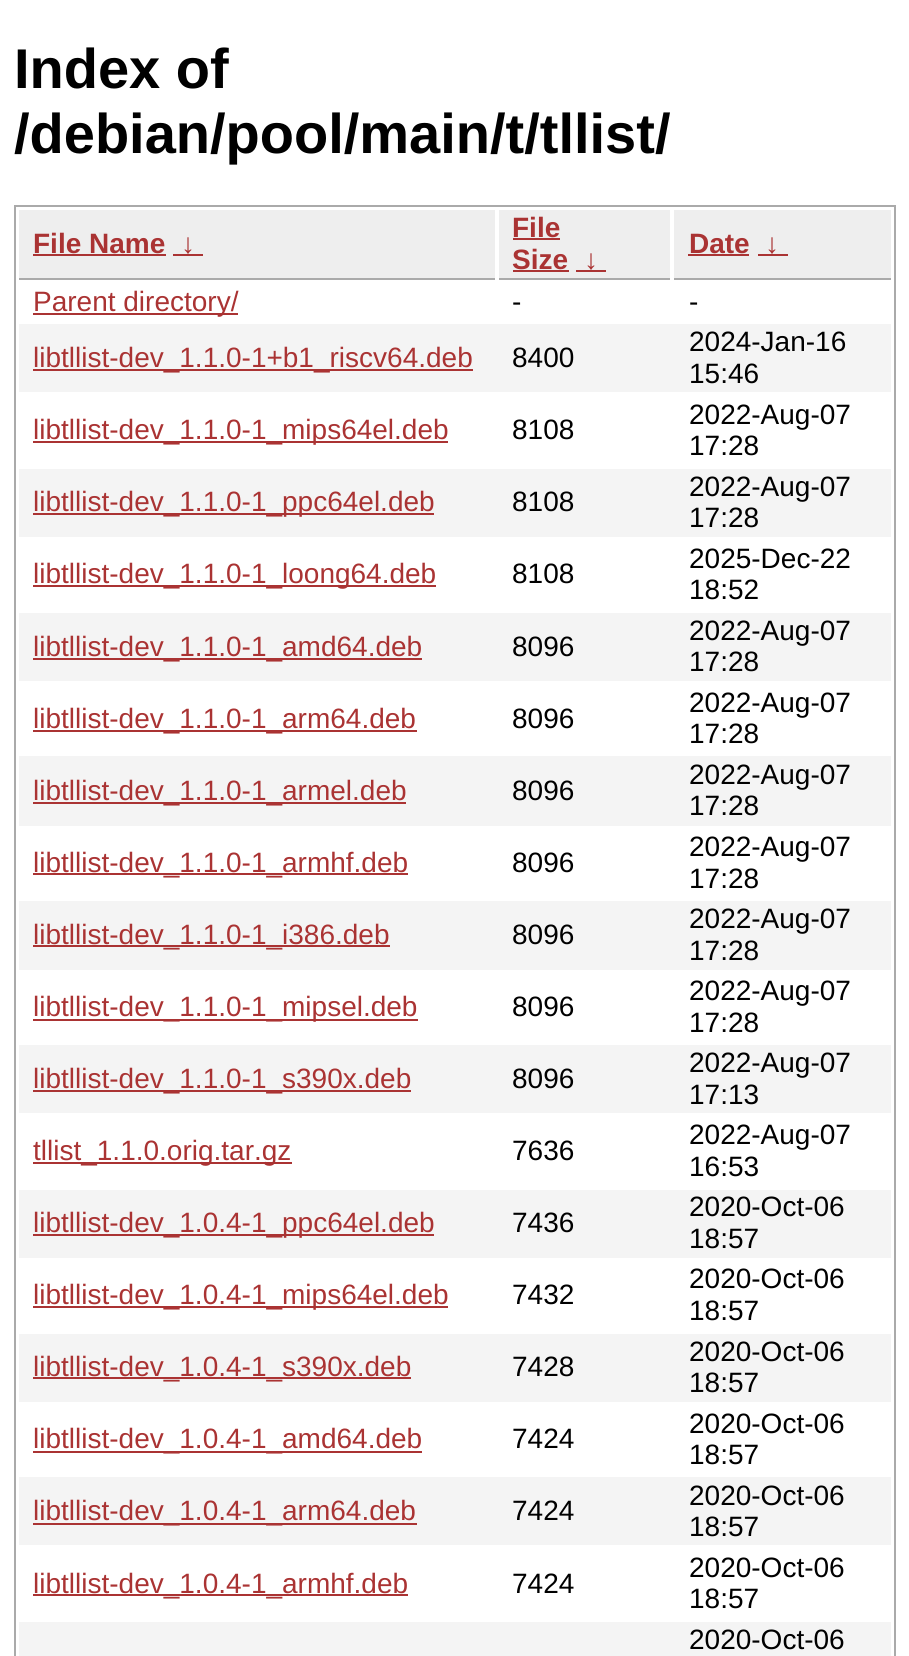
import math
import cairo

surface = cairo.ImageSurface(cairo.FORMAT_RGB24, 909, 1656)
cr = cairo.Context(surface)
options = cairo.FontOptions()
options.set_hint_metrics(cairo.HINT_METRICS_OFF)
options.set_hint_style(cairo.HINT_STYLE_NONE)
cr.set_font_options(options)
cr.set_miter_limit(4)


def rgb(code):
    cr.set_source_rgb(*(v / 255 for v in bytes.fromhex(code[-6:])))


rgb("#ffffff")
cr.paint()
cr.rectangle(15, 206, 880, 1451)
rgb("#aaaaaa")
cr.stroke()
for x, y, w, h, color in [
    (19, 210, 476, 68, "#eeeeee"),
    (19, 278, 476, 2, "#aaaaaa"),
    (33, 254, 133, 2, "#aa3333"),
    (173, 254, 30, 2, "#aa3333"),
    (499, 210, 171, 68, "#eeeeee"),
    (499, 278, 171, 2, "#aaaaaa"),
    (513, 238, 47, 2, "#aa3333"),
    (513, 270, 56, 2, "#aa3333"),
    (576, 270, 30, 2, "#aa3333"),
    (674, 210, 217, 68, "#eeeeee"),
    (674, 278, 217, 2, "#aaaaaa"),
    (688, 254, 61, 2, "#aa3333"),
    (758, 254, 30, 2, "#aa3333"),
    (33, 313, 205, 2, "#aa3333"),
    (19, 324, 872, 68, "#f4f4f4"),
    (33, 369, 440, 2, "#aa3333"),
    (33, 441, 415, 2, "#aa3333"),
    (19, 469, 872, 68, "#f4f4f4"),
    (33, 513, 401, 2, "#aa3333"),
    (33, 585, 403, 2, "#aa3333"),
    (19, 613, 872, 68, "#f4f4f4"),
    (33, 658, 389, 2, "#aa3333"),
    (33, 730, 384, 2, "#aa3333"),
    (19, 756, 872, 70, "#f4f4f4"),
    (33, 802, 373, 2, "#aa3333"),
    (33, 873, 375, 2, "#aa3333"),
    (19, 901, 872, 69, "#f4f4f4"),
    (33, 945, 357, 2, "#aa3333"),
    (33, 1019, 385, 2, "#aa3333"),
    (19, 1045, 872, 68, "#f4f4f4"),
    (33, 1090, 378, 2, "#aa3333"),
    (33, 1162, 259, 2, "#aa3333"),
    (19, 1190, 872, 68, "#f4f4f4"),
    (33, 1234, 401, 2, "#aa3333"),
    (33, 1306, 415, 2, "#aa3333"),
    (19, 1334, 872, 68, "#f4f4f4"),
    (33, 1377, 378, 2, "#aa3333"),
    (33, 1451, 389, 2, "#aa3333"),
    (19, 1477, 872, 68, "#f4f4f4"),
    (33, 1523, 384, 2, "#aa3333"),
    (33, 1594, 375, 2, "#aa3333"),
    (19, 1622, 872, 34, "#f4f4f4"),
]:
    rgb(color)
    cr.rectangle(x, y, w, h)
    cr.fill()
cr.select_font_face("Liberation Sans", cairo.FONT_SLANT_NORMAL, cairo.FONT_WEIGHT_BOLD)
cr.set_font_size(56)
rgb("#000000")
cr.move_to(14, 88)
cr.show_text("Index of")
cr.move_to(14, 153)
cr.show_text("/debian/pool/main/t/tllist/")
cr.set_font_size(28)
rgb("#aa3333")
for x, y, s in [
    (33, 253, "File Name"),
    (181, 253, "↓"),
    (512, 237, "File"),
    (512, 269, "Size"),
    (584, 269, "↓"),
    (689, 253, "Date"),
    (765, 253, "↓"),
]:
    cr.move_to(x, y)
    cr.show_text(s)
cr.select_font_face("Liberation Sans")
cr.move_to(33, 311)
cr.show_text("Parent directory/")
rgb("#000000")
cr.move_to(512, 311)
cr.show_text("-")
cr.move_to(689, 311)
cr.show_text("-")
rgb("#aa3333")
cr.move_to(33, 367)
cr.show_text("libtllist-dev_1.1.0-1+b1_riscv64.deb")
rgb("#000000")
for x, y, s in [
    (512, 367, "8400"),
    (689, 351, "2024-Jan-16"),
    (689, 383, "15:46"),
]:
    cr.move_to(x, y)
    cr.show_text(s)
rgb("#aa3333")
cr.move_to(33, 439)
cr.show_text("libtllist-dev_1.1.0-1_mips64el.deb")
rgb("#000000")
for x, y, s in [
    (512, 439, "8108"),
    (689, 424, "2022-Aug-07"),
    (689, 455, "17:28"),
]:
    cr.move_to(x, y)
    cr.show_text(s)
rgb("#aa3333")
cr.move_to(33, 511)
cr.show_text("libtllist-dev_1.1.0-1_ppc64el.deb")
rgb("#000000")
for x, y, s in [
    (512, 511, "8108"),
    (689, 496, "2022-Aug-07"),
    (689, 527, "17:28"),
]:
    cr.move_to(x, y)
    cr.show_text(s)
rgb("#aa3333")
cr.move_to(33, 583)
cr.show_text("libtllist-dev_1.1.0-1_loong64.deb")
rgb("#000000")
for x, y, s in [
    (512, 583, "8108"),
    (689, 568, "2025-Dec-22"),
    (689, 599, "18:52"),
]:
    cr.move_to(x, y)
    cr.show_text(s)
rgb("#aa3333")
cr.move_to(33, 656)
cr.show_text("libtllist-dev_1.1.0-1_amd64.deb")
rgb("#000000")
for x, y, s in [
    (512, 656, "8096"),
    (689, 640, "2022-Aug-07"),
    (689, 671, "17:28"),
]:
    cr.move_to(x, y)
    cr.show_text(s)
rgb("#aa3333")
cr.move_to(33, 728)
cr.show_text("libtllist-dev_1.1.0-1_arm64.deb")
rgb("#000000")
for x, y, s in [
    (512, 728, "8096"),
    (689, 712, "2022-Aug-07"),
    (689, 743, "17:28"),
]:
    cr.move_to(x, y)
    cr.show_text(s)
rgb("#aa3333")
cr.move_to(33, 800)
cr.show_text("libtllist-dev_1.1.0-1_armel.deb")
rgb("#000000")
for x, y, s in [
    (512, 800, "8096"),
    (689, 784, "2022-Aug-07"),
    (689, 815, "17:28"),
]:
    cr.move_to(x, y)
    cr.show_text(s)
rgb("#aa3333")
cr.move_to(33, 872)
cr.show_text("libtllist-dev_1.1.0-1_armhf.deb")
rgb("#000000")
for x, y, s in [
    (512, 872, "8096"),
    (689, 856, "2022-Aug-07"),
    (689, 888, "17:28"),
]:
    cr.move_to(x, y)
    cr.show_text(s)
rgb("#aa3333")
cr.move_to(33, 944)
cr.show_text("libtllist-dev_1.1.0-1_i386.deb")
rgb("#000000")
for x, y, s in [
    (512, 944, "8096"),
    (689, 928, "2022-Aug-07"),
    (689, 960, "17:28"),
]:
    cr.move_to(x, y)
    cr.show_text(s)
rgb("#aa3333")
cr.move_to(33, 1016)
cr.show_text("libtllist-dev_1.1.0-1_mipsel.deb")
rgb("#000000")
for x, y, s in [
    (512, 1016, "8096"),
    (689, 1000, "2022-Aug-07"),
    (689, 1032, "17:28"),
]:
    cr.move_to(x, y)
    cr.show_text(s)
rgb("#aa3333")
cr.move_to(33, 1088)
cr.show_text("libtllist-dev_1.1.0-1_s390x.deb")
rgb("#000000")
for x, y, s in [
    (512, 1088, "8096"),
    (689, 1072, "2022-Aug-07"),
    (689, 1104, "17:13"),
]:
    cr.move_to(x, y)
    cr.show_text(s)
rgb("#aa3333")
cr.move_to(33, 1160)
cr.show_text("tllist_1.1.0.orig.tar.gz")
rgb("#000000")
for x, y, s in [
    (512, 1160, "7636"),
    (689, 1144, "2022-Aug-07"),
    (689, 1176, "16:53"),
]:
    cr.move_to(x, y)
    cr.show_text(s)
rgb("#aa3333")
cr.move_to(33, 1232)
cr.show_text("libtllist-dev_1.0.4-1_ppc64el.deb")
rgb("#000000")
for x, y, s in [
    (512, 1232, "7436"),
    (689, 1216, "2020-Oct-06"),
    (689, 1248, "18:57"),
]:
    cr.move_to(x, y)
    cr.show_text(s)
rgb("#aa3333")
cr.move_to(33, 1304)
cr.show_text("libtllist-dev_1.0.4-1_mips64el.deb")
rgb("#000000")
for x, y, s in [
    (512, 1304, "7432"),
    (689, 1288, "2020-Oct-06"),
    (689, 1320, "18:57"),
]:
    cr.move_to(x, y)
    cr.show_text(s)
rgb("#aa3333")
cr.move_to(33, 1376)
cr.show_text("libtllist-dev_1.0.4-1_s390x.deb")
rgb("#000000")
for x, y, s in [
    (512, 1376, "7428"),
    (689, 1361, "2020-Oct-06"),
    (689, 1392, "18:57"),
]:
    cr.move_to(x, y)
    cr.show_text(s)
rgb("#aa3333")
cr.move_to(33, 1448)
cr.show_text("libtllist-dev_1.0.4-1_amd64.deb")
rgb("#000000")
for x, y, s in [
    (512, 1448, "7424"),
    (689, 1433, "2020-Oct-06"),
    (689, 1464, "18:57"),
]:
    cr.move_to(x, y)
    cr.show_text(s)
rgb("#aa3333")
cr.move_to(33, 1520)
cr.show_text("libtllist-dev_1.0.4-1_arm64.deb")
rgb("#000000")
for x, y, s in [
    (512, 1520, "7424"),
    (689, 1505, "2020-Oct-06"),
    (689, 1536, "18:57"),
]:
    cr.move_to(x, y)
    cr.show_text(s)
rgb("#aa3333")
cr.move_to(33, 1593)
cr.show_text("libtllist-dev_1.0.4-1_armhf.deb")
rgb("#000000")
for x, y, s in [
    (512, 1593, "7424"),
    (689, 1577, "2020-Oct-06"),
    (689, 1608, "18:57"),
    (689, 1649, "2020-Oct-06"),
]:
    cr.move_to(x, y)
    cr.show_text(s)
surface.write_to_png("page.png")
